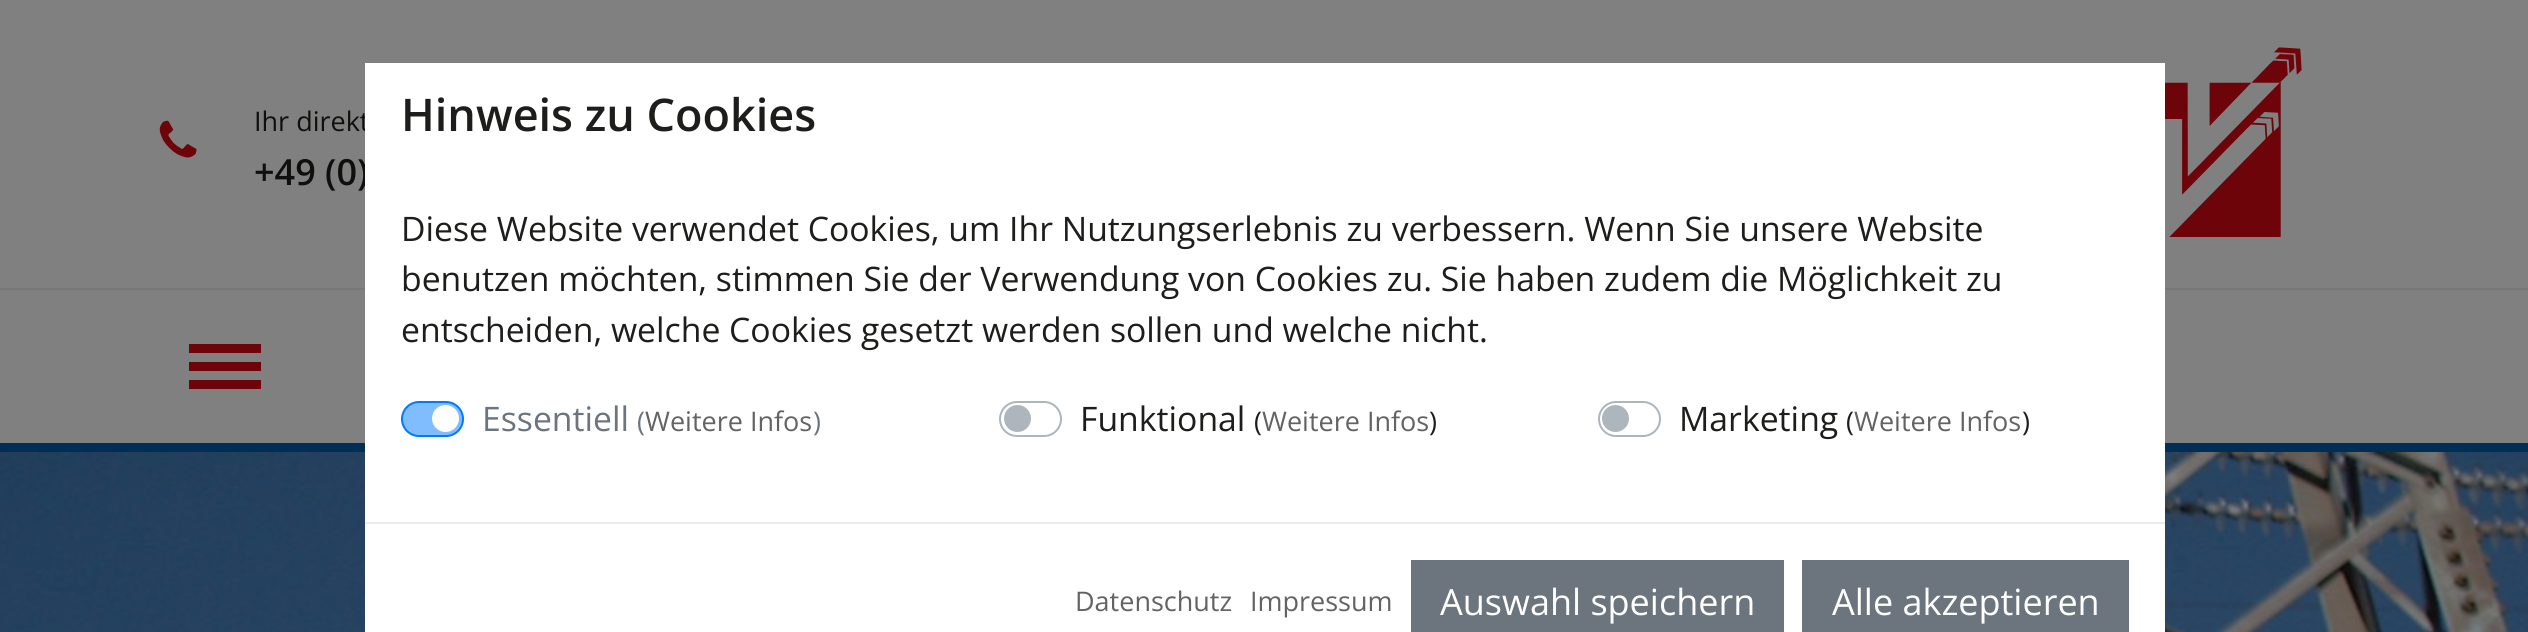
import math
import cairo

surface = cairo.ImageSurface(cairo.FORMAT_RGB24, 2528, 632)
cr = cairo.Context(surface)
options = cairo.FontOptions()
options.set_hint_metrics(cairo.HINT_METRICS_OFF)
options.set_hint_style(cairo.HINT_STYLE_NONE)
cr.set_font_options(options)
cr.set_miter_limit(4)


def rgb(code):
    cr.set_source_rgb(*(v / 255 for v in bytes.fromhex(code[-6:])))


def rrect(x, y, w, h, r):
    cr.new_sub_path()
    for i, (u, v) in enumerate([(x + w - r, y + h - r), (x + r, y + h - r), (x + r, y + r), (x + w - r, y + r)]):
        cr.arc(u, v, r, i * math.pi / 2, (i + 1) * math.pi / 2)
    cr.close_path()


def image(path, x, y, w, h):
    cr.save()
    cr.set_source_surface(cairo.ImageSurface.create_from_png(path), x, y)
    cr.rectangle(x, y, w, h)
    cr.fill()
    cr.restore()


rgb("#808080")
cr.paint()
rgb("#002e55")
cr.rectangle(0, 443, 2528, 9)
cr.fill()
rgb("#787878")
cr.rectangle(0, 288, 2528, 2)
cr.fill()
image("img/1.png", 159, 120, 38, 38)
image("img/2.png", 2165, 47, 137, 190)
for x, y, w, h, color in [
    (189, 344, 72, 9, "#6d0409"),
    (189, 362, 72, 9, "#6d0409"),
    (189, 380, 72, 9, "#6d0409"),
]:
    rgb(color)
    cr.rectangle(x, y, w, h)
    cr.fill()
image("img/3.png", 0, 452, 2528, 180)
cr.select_font_face("Open Sans")
cr.set_font_size(27)
rgb("#0f0f0e")
cr.move_to(254, 131)
cr.show_text("Ihr direkt")
cr.select_font_face("Open Sans SemiBold")
cr.set_font_size(36)
cr.move_to(254, 185)
cr.show_text("+49 (0)")
rgb("#ffffff")
cr.rectangle(365, 63, 1800, 569)
cr.fill()
cr.set_font_size(45)
rgb("#1d1d1b")
cr.move_to(401, 131)
cr.show_text("Hinweis zu Cookies")
cr.select_font_face("Open Sans")
cr.set_font_size(33.75)
for x, y, s in [
    (401, 241, "Diese Website verwendet Cookies, um Ihr Nutzungserlebnis zu verbessern. Wenn Sie unsere Website"),
    (401, 291, "benutzen möchten, stimmen Sie der Verwendung von Cookies zu. Sie haben zudem die Möglichkeit zu"),
    (401, 342, "entscheiden, welche Cookies gesetzt werden sollen und welche nicht."),
]:
    cr.move_to(x, y)
    cr.show_text(s)
rgb("#80bdff")
rrect(402, 402, 61, 34, 17)
cr.fill_preserve()
rgb("#007bff")
cr.stroke()
rgb("#ffffff")
cr.arc(445.5, 418.5, 13.5, 0, 2 * math.pi)
cr.fill()
rgb("#6c757d")
cr.move_to(482, 431)
cr.show_text("Essentiell")
cr.set_font_size(27)
cr.move_to(637, 431)
cr.show_text("(")
rgb("#646363")
cr.move_to(645, 431)
cr.show_text("Weitere Infos")
rgb("#6c757d")
cr.move_to(813, 431)
cr.show_text(")")
rrect(1000, 402, 61, 34, 17)
rgb("#adb5bd")
cr.stroke()
cr.arc(1017.5, 418.5, 13.5, 0, 2 * math.pi)
cr.fill()
cr.set_font_size(33.75)
rgb("#1d1d1b")
cr.move_to(1080, 431)
cr.show_text("Funktional")
cr.set_font_size(27)
cr.move_to(1254, 431)
cr.show_text("(")
rgb("#646363")
cr.move_to(1262, 431)
cr.show_text("Weitere Infos")
rgb("#1d1d1b")
cr.move_to(1429, 431)
cr.show_text(")")
rrect(1599, 402, 61, 34, 17)
rgb("#adb5bd")
cr.stroke()
cr.arc(1615.5, 418.5, 13.5, 0, 2 * math.pi)
cr.fill()
cr.set_font_size(33.75)
rgb("#1d1d1b")
cr.move_to(1679, 431)
cr.show_text("Marketing")
cr.set_font_size(27)
cr.move_to(1846, 431)
cr.show_text("(")
rgb("#646363")
cr.move_to(1854, 431)
cr.show_text("Weitere Infos")
rgb("#1d1d1b")
cr.move_to(2022, 431)
cr.show_text(")")
rgb("#e9ecef")
cr.rectangle(365, 522, 1800, 2)
cr.fill()
rgb("#646363")
cr.move_to(1075, 611)
cr.show_text("Datenschutz")
cr.move_to(1250, 611)
cr.show_text("Impressum")
rgb("#6c757d")
cr.rectangle(1411, 560, 373, 72)
cr.fill()
cr.set_font_size(36)
rgb("#ffffff")
cr.move_to(1440, 615)
cr.show_text("Auswahl speichern")
rgb("#6c757d")
cr.rectangle(1802, 560, 327, 72)
cr.fill()
rgb("#ffffff")
cr.move_to(1832, 615)
cr.show_text("Alle akzeptieren")
surface.write_to_png("page.png")
